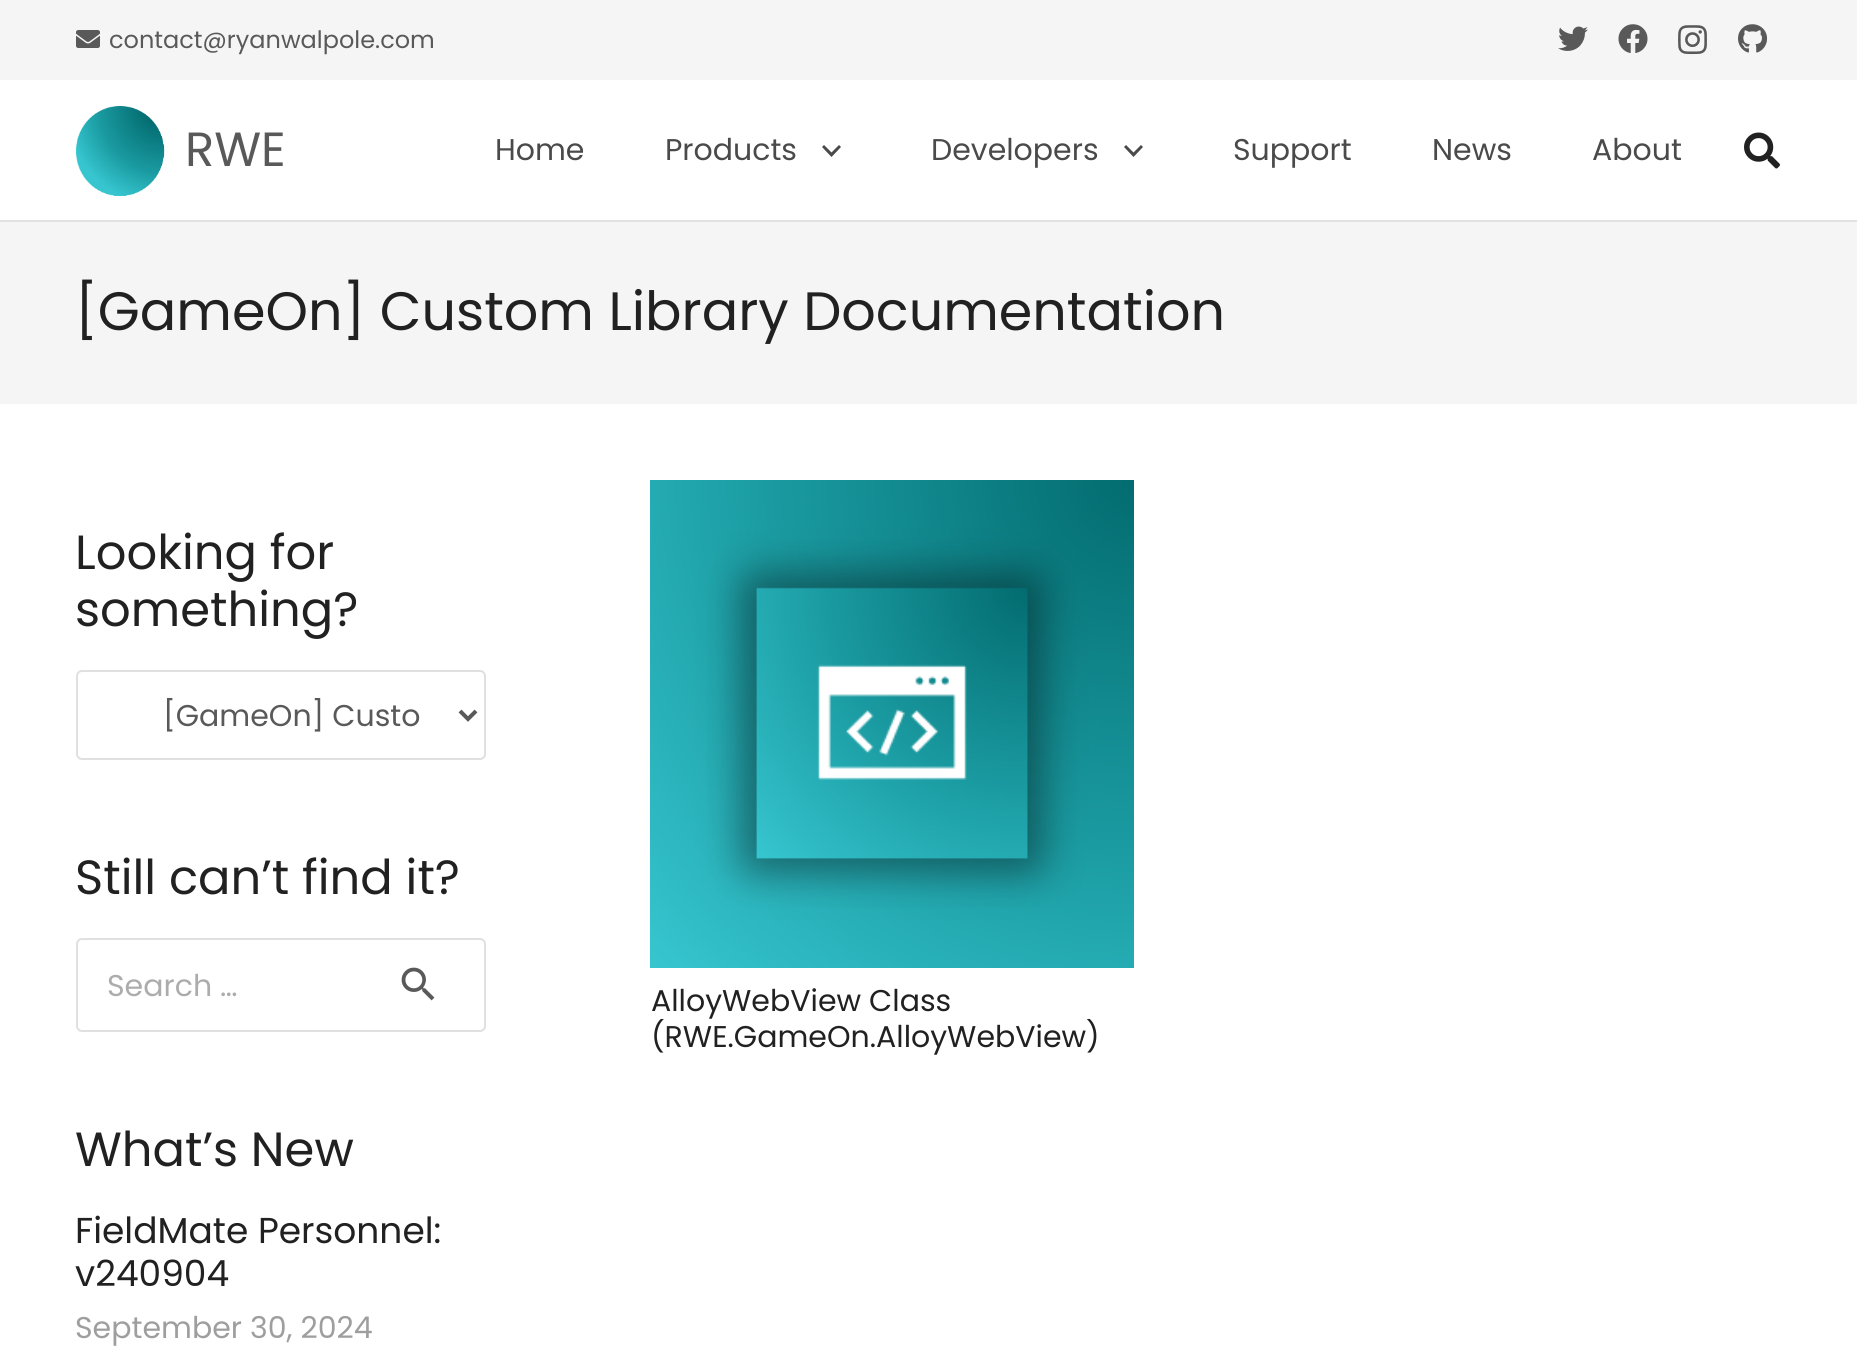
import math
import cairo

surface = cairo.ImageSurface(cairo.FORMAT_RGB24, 1857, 1359)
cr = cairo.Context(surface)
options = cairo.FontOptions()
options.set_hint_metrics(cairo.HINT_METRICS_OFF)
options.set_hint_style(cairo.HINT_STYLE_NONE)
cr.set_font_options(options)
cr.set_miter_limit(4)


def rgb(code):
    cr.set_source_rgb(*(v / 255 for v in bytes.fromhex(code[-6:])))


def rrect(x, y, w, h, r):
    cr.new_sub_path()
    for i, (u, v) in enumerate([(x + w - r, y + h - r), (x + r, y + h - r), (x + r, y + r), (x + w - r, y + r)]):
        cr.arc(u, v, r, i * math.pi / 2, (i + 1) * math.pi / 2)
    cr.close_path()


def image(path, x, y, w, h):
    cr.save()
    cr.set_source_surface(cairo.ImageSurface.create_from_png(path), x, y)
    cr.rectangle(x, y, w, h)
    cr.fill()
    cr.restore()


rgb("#ffffff")
cr.paint()
rgb("#f5f5f5")
cr.rectangle(0, 0, 1857, 404)
cr.fill()
image("img/1.png", 76, 30, 24, 18)
image("img/2.png", 1558, 26, 30, 25)
image("img/3.png", 1618, 24, 30, 29)
image("img/4.png", 1678, 25, 29, 30)
image("img/5.png", 1738, 24, 30, 29)
rgb("#e1e1e1")
cr.rectangle(0, 220, 1857, 2)
cr.fill()
rgb("#ffffff")
cr.rectangle(0, 80, 1857, 140)
cr.fill()
image("img/6.png", 76, 106, 89, 90)
rgb("#4a4a4a")
cr.new_path()
cr.move_to(824, 145)
cr.line_to(831.5, 152.5)
cr.line_to(839, 145)
cr.line_to(841, 147)
cr.line_to(831.5, 157)
cr.line_to(822, 147)
cr.close_path()
cr.fill()
cr.new_path()
cr.move_to(1126, 145)
cr.line_to(1133.5, 152.5)
cr.line_to(1141, 145)
cr.line_to(1143, 147)
cr.line_to(1133.5, 157)
cr.line_to(1124, 147)
cr.close_path()
cr.fill()
image("img/7.png", 1744, 132, 36, 37)
rrect(77, 671, 408, 88, 5)
rgb("#e0e0e0")
cr.stroke()
cr.new_path()
cr.move_to(460, 711)
cr.line_to(468, 719)
cr.line_to(476, 711)
rgb("#595959")
cr.set_line_width(4)
cr.stroke()
rrect(77, 939, 408, 92, 5)
rgb("#e0e0e0")
cr.set_line_width(2)
cr.stroke()
image("img/8.png", 401, 967, 34, 34)
image("img/9.png", 650, 480, 484, 488)
cr.select_font_face("Poppins")
cr.set_font_size(24)
rgb("#595959")
cr.move_to(109, 48)
cr.show_text("contact@ryanwalpole.com")
cr.set_font_size(48)
cr.move_to(185, 166)
cr.show_text("RWE")
cr.set_font_size(30)
rgb("#4a4a4a")
for x, y, s in [
    (495, 160, "Home"),
    (665, 160, "Products"),
    (931, 160, "Developers"),
    (1233, 160, "Support"),
    (1432, 160, "News"),
    (1592, 160, "About"),
]:
    cr.move_to(x, y)
    cr.show_text(s)
cr.set_font_size(54)
rgb("#212121")
cr.move_to(75, 330)
cr.show_text("[GameOn] Custom Library Documentation")
cr.set_font_size(48)
cr.move_to(75, 569)
cr.show_text("Looking for")
cr.move_to(75, 626)
cr.show_text("something?")
cr.set_font_size(30)
rgb("#595959")
cr.move_to(163, 726)
cr.show_text("[GameOn] Custo")
cr.set_font_size(48)
rgb("#212121")
cr.move_to(75, 894)
cr.show_text("Still can’t find it?")
cr.set_font_size(30)
rgb("#acacac")
cr.move_to(107, 996)
cr.show_text("Search …")
cr.set_font_size(48)
rgb("#212121")
cr.move_to(75, 1166)
cr.show_text("What’s New")
cr.set_font_size(36)
cr.move_to(75, 1243)
cr.show_text("FieldMate Personnel:")
cr.move_to(75, 1286)
cr.show_text("v240904")
cr.set_font_size(30)
rgb("#9e9e9e")
cr.move_to(75, 1338)
cr.show_text("September 30, 2024")
rgb("#212121")
cr.move_to(651, 1011)
cr.show_text("AlloyWebView Class")
cr.move_to(651, 1047)
cr.show_text("(RWE.GameOn.AlloyWebView)")
surface.write_to_png("page.png")
